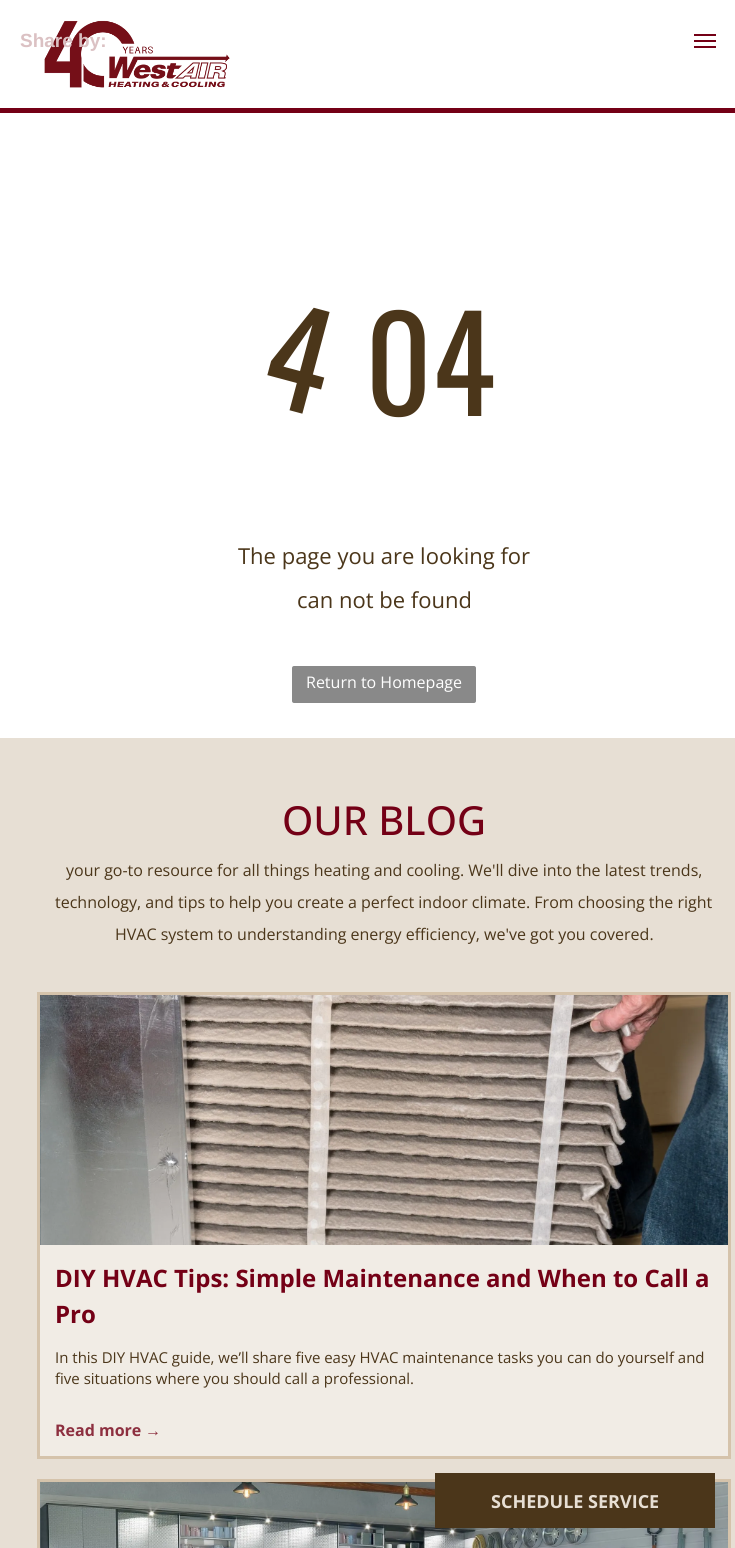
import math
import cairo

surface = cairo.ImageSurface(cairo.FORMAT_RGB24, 735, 1548)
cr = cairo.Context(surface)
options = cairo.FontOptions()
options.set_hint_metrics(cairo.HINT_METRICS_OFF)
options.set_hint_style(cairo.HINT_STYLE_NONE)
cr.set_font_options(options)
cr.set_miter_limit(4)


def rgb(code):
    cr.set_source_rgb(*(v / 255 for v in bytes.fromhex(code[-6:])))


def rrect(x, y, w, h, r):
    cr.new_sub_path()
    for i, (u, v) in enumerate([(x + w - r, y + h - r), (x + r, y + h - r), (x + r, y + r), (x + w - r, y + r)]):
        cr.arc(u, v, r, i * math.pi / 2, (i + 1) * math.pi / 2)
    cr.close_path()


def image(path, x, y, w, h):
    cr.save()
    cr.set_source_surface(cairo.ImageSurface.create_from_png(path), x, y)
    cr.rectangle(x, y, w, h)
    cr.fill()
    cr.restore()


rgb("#ffffff")
cr.paint()
rgb("#740016")
cr.rectangle(0, 108, 735, 5)
cr.fill()
image("img/1.png", 44, 20, 186, 68)
for x, y, w, h, color in [
    (694, 34, 22, 2, "#740016"),
    (694, 40, 22, 2, "#740016"),
    (694, 46, 22, 2, "#740016"),
]:
    rgb(color)
    cr.rectangle(x, y, w, h)
    cr.fill()
rgb("#898989")
rrect(292, 666, 184, 37, 2)
cr.fill()
rgb("#e7dfd4")
cr.rectangle(0, 738, 735, 810)
cr.fill()
rgb("#f1ece5")
cr.rectangle(40, 1245, 688, 211)
cr.fill()
cr.rectangle(38.5, 993.5, 691, 464)
rgb("#d5c3ab")
cr.set_line_width(3)
cr.stroke()
image("img/2.png", 40, 995, 688, 250)
cr.rectangle(38.5, 1480.5, 691, 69)
cr.stroke()
image("img/3.png", 40, 1482, 688, 66)
rgb("#4b361a")
cr.rectangle(435, 1473, 280, 55)
cr.fill()
cr.select_font_face("Liberation Sans", cairo.FONT_SLANT_NORMAL, cairo.FONT_WEIGHT_BOLD)
cr.set_font_size(19)
rgb("#dbc1c3")
cr.move_to(20, 47)
cr.show_text("Share by:")
cr.select_font_face("Oswald")
cr.set_font_size(130)
rgb("#4b361a")
cr.save()
cr.translate(255, 401)
cr.rotate(15 * math.pi / 180)
cr.move_to(0, 0)
cr.show_text("4")
cr.restore()
cr.move_to(365, 416)
cr.show_text("04")
cr.select_font_face("Open Sans")
cr.set_font_size(22)
cr.move_to(238, 564)
cr.show_text("The page you are looking for")
cr.move_to(297, 608)
cr.show_text("can not be found")
cr.set_font_size(16)
rgb("#ffffff")
cr.move_to(306, 688)
cr.show_text("Return to Homepage")
cr.select_font_face("Open Sans Medium")
cr.set_font_size(40)
rgb("#740016")
cr.move_to(282, 835)
cr.show_text("OUR BLOG")
cr.select_font_face("Open Sans")
cr.set_font_size(16)
rgb("#4b361a")
for x, y, s in [
    (66, 876, "your go-to resource for all things heating and cooling. We'll dive into the latest trends,"),
    (55, 908, "technology, and tips to help you create a perfect indoor climate. From choosing the right"),
    (115, 940, "HVAC system to understanding energy efficiency, we've got you covered."),
]:
    cr.move_to(x, y)
    cr.show_text(s)
cr.select_font_face("Open Sans", cairo.FONT_SLANT_NORMAL, cairo.FONT_WEIGHT_BOLD)
cr.set_font_size(24)
rgb("#740016")
cr.move_to(55, 1287)
cr.show_text("DIY HVAC Tips: Simple Maintenance and When to Call a")
cr.move_to(55, 1323)
cr.show_text("Pro")
cr.select_font_face("Open Sans")
cr.set_font_size(15)
rgb("#4b361a")
cr.move_to(55, 1363)
cr.show_text("In this DIY HVAC guide, we’ll share five easy HVAC maintenance tasks you can do yourself and")
cr.move_to(55, 1384)
cr.show_text("five situations where you should call a professional.")
cr.select_font_face("Open Sans", cairo.FONT_SLANT_NORMAL, cairo.FONT_WEIGHT_BOLD)
cr.set_font_size(16)
rgb("#8d2f3f")
cr.move_to(55, 1436)
cr.show_text("Read more")
cr.select_font_face("Liberation Serif", cairo.FONT_SLANT_NORMAL, cairo.FONT_WEIGHT_BOLD)
cr.move_to(145, 1436)
cr.show_text("→")
cr.select_font_face("Open Sans", cairo.FONT_SLANT_NORMAL, cairo.FONT_WEIGHT_BOLD)
cr.set_font_size(18)
rgb("#e7dfd4")
cr.move_to(491, 1508)
cr.show_text("SCHEDULE SERVICE")
surface.write_to_png("page.png")
